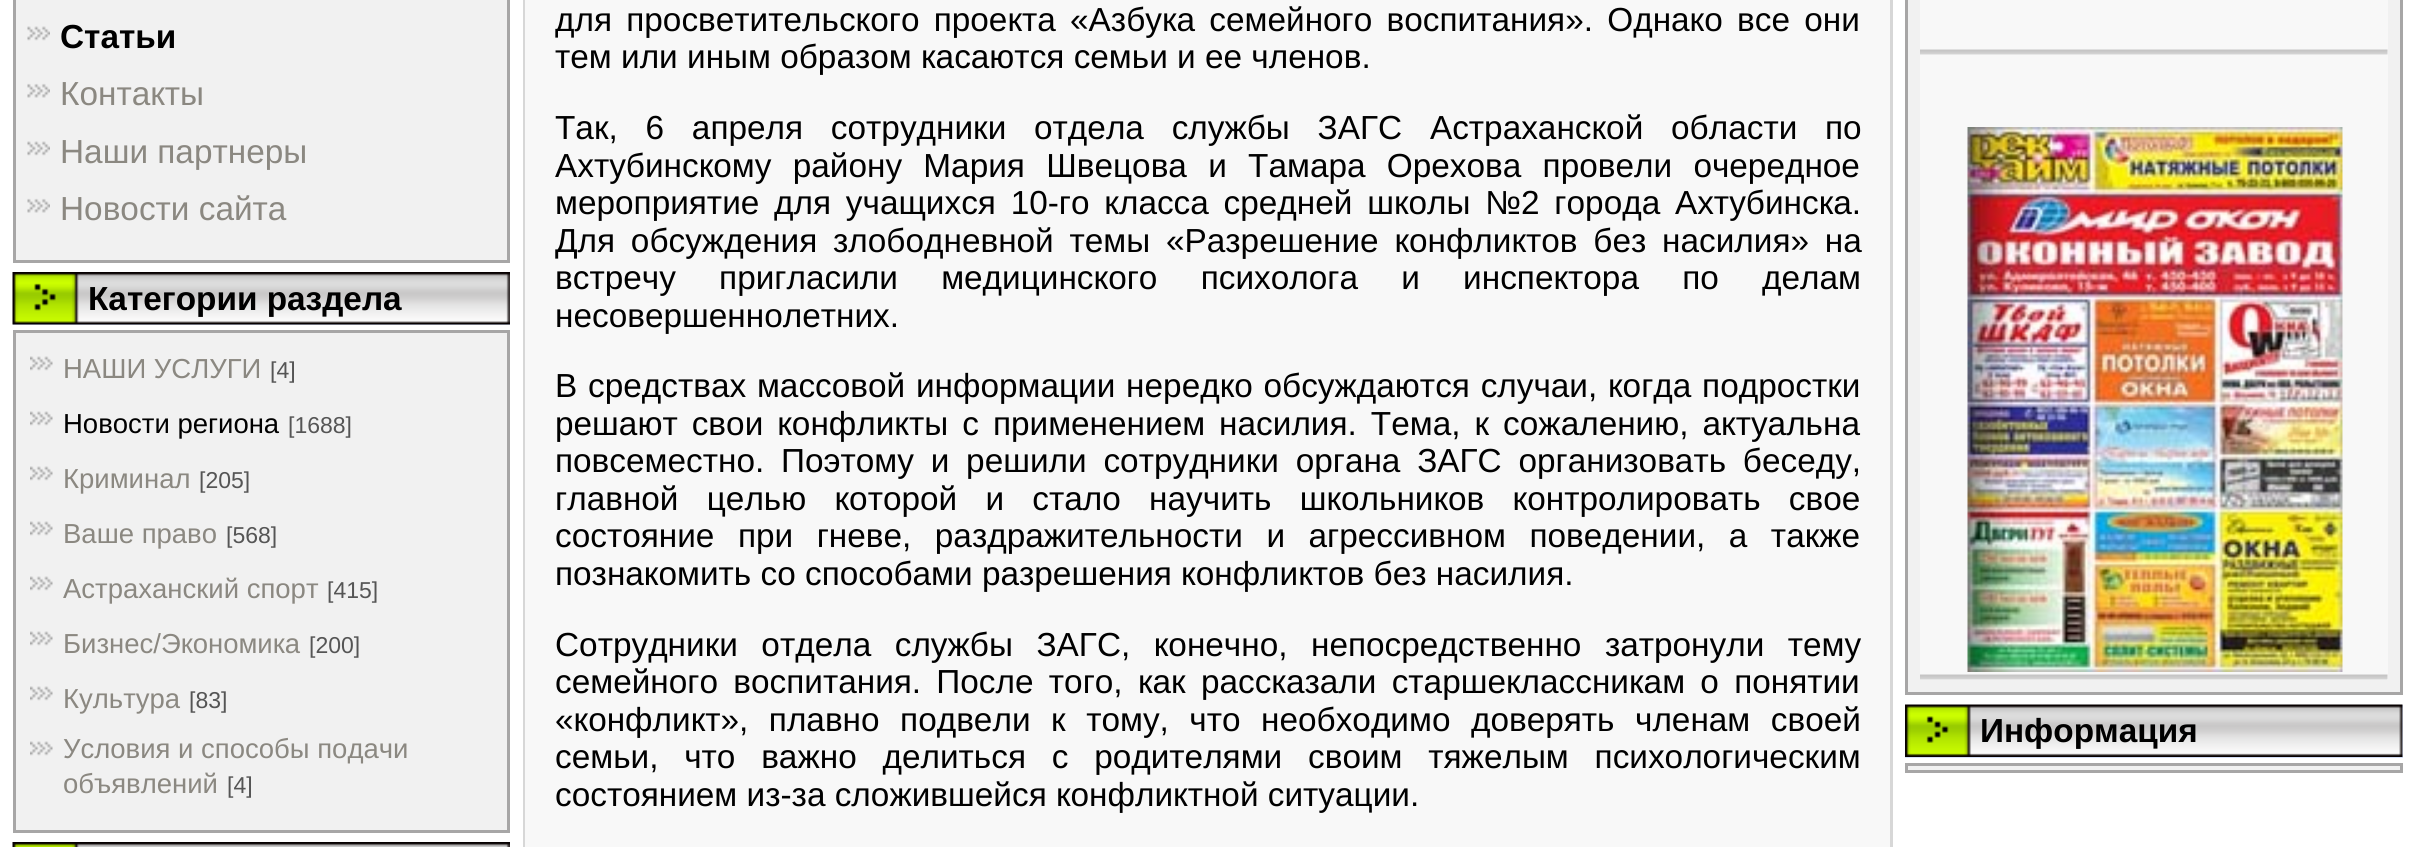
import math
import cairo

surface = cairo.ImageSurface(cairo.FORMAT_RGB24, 2414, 847)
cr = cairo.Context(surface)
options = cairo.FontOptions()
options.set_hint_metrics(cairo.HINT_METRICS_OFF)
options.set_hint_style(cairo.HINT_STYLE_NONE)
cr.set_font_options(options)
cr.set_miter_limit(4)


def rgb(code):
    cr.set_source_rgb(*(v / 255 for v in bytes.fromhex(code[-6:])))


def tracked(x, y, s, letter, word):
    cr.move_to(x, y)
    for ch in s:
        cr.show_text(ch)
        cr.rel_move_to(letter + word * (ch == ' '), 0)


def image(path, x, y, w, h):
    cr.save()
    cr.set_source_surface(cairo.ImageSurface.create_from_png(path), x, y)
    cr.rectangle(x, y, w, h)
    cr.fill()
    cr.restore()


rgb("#ffffff")
cr.paint()
rgb("#f1f1f1")
cr.rectangle(14.5, -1.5, 494, 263)
cr.fill_preserve()
rgb("#a7a6a6")
cr.set_line_width(3)
cr.stroke()
image("img/1.png", 27, 26, 23, 15)
image("img/2.png", 27, 83, 23, 15)
image("img/3.png", 27, 141, 23, 15)
image("img/2.png", 27, 198, 23, 15)
rgb("#d4dff7")
cr.rectangle(13, 324, 497, 1)
cr.fill()
image("img/4.png", 12, 272, 498, 53)
rgb("#f1f1f1")
cr.rectangle(14.5, 331.5, 494, 500)
cr.fill_preserve()
rgb("#a7a6a6")
cr.stroke()
image("img/5.png", 30, 356, 23, 15)
image("img/5.png", 30, 411, 23, 15)
image("img/5.png", 30, 466, 23, 15)
image("img/5.png", 30, 521, 23, 15)
image("img/5.png", 30, 576, 23, 15)
image("img/5.png", 30, 631, 23, 15)
image("img/5.png", 30, 686, 23, 15)
image("img/5.png", 30, 741, 23, 15)
image("img/6.png", 12, 842, 498, 5)
cr.rectangle(524.5, -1.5, 1367, 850)
rgb("#d7d7d7")
cr.stroke()
rgb("#f8f8f8")
cr.rectangle(525, 0, 1365, 847)
cr.fill()
rgb("#f1f1f1")
cr.rectangle(1906.5, -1.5, 495, 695)
cr.fill_preserve()
rgb("#a7a6a6")
cr.stroke()
rgb("#f8f8f8")
cr.rectangle(1920, 0, 468, 680)
cr.fill()
image("img/7.png", 1920, 49, 468, 6)
image("img/8.png", 1967, 127, 376, 545)
image("img/7.png", 1920, 674, 468, 6)
rgb("#d4dff7")
cr.rectangle(1905, 705, 498, 53)
cr.fill()
image("img/9.png", 1905, 704, 498, 53)
rgb("#f1f1f1")
cr.rectangle(1906.5, 764.5, 495, 7)
cr.fill_preserve()
rgb("#a7a6a6")
cr.stroke()
cr.select_font_face("Liberation Sans", cairo.FONT_SLANT_NORMAL, cairo.FONT_WEIGHT_BOLD)
cr.set_font_size(33.35)
rgb("#000000")
cr.move_to(60, 48)
cr.show_text("Статьи")
cr.select_font_face("Liberation Sans")
rgb("#8b8881")
for x, y, s in [
    (60, 105, "Контакты"),
    (60, 163, "Наши партнеры"),
    (60, 220, "Новости сайта"),
]:
    cr.move_to(x, y)
    cr.show_text(s)
cr.select_font_face("Liberation Sans", cairo.FONT_SLANT_NORMAL, cairo.FONT_WEIGHT_BOLD)
rgb("#000000")
cr.move_to(88, 310)
cr.show_text("Категории раздела")
cr.select_font_face("Liberation Sans")
cr.set_font_size(27.5)
rgb("#8b8881")
cr.move_to(63, 378)
cr.show_text("НАШИ УСЛУГИ")
cr.set_font_size(23)
rgb("#555555")
cr.move_to(270, 378)
cr.show_text("[4]")
cr.set_font_size(27.5)
rgb("#000000")
cr.move_to(63, 433)
cr.show_text("Новости региона")
cr.set_font_size(23)
rgb("#555555")
cr.move_to(288, 433)
cr.show_text("[1688]")
cr.set_font_size(27.5)
rgb("#8b8881")
cr.move_to(63, 488)
cr.show_text("Криминал")
cr.set_font_size(23)
rgb("#555555")
cr.move_to(199, 488)
cr.show_text("[205]")
cr.set_font_size(27.5)
rgb("#8b8881")
cr.move_to(63, 543)
cr.show_text("Ваше право")
cr.set_font_size(23)
rgb("#555555")
cr.move_to(226, 543)
cr.show_text("[568]")
cr.set_font_size(27.5)
rgb("#8b8881")
cr.move_to(63, 598)
cr.show_text("Астраханский спорт")
cr.set_font_size(23)
rgb("#555555")
cr.move_to(327, 598)
cr.show_text("[415]")
cr.set_font_size(27.5)
rgb("#8b8881")
cr.move_to(63, 653)
cr.show_text("Бизнес/Экономика")
cr.set_font_size(23)
rgb("#555555")
cr.move_to(309, 653)
cr.show_text("[200]")
cr.set_font_size(27.5)
rgb("#8b8881")
cr.move_to(63, 708)
cr.show_text("Культура")
cr.set_font_size(23)
rgb("#555555")
cr.move_to(189, 708)
cr.show_text("[83]")
cr.set_font_size(27.5)
rgb("#8b8881")
cr.move_to(63, 758)
cr.show_text("Условия и способы подачи")
cr.move_to(63, 793)
cr.show_text("объявлений")
cr.set_font_size(23)
rgb("#555555")
cr.move_to(227, 793)
cr.show_text("[4]")
cr.set_font_size(33.35)
rgb("#000000")
tracked(555, 31, "для просветительского проекта «Азбука семейного воспитания». Однако все они", 0, 5)
cr.move_to(555, 68)
cr.show_text("тем или иным образом касаются семьи и ее членов.")
tracked(555, 139, "Так, 6 апреля сотрудники отдела службы ЗАГС Астраханской области по", 0, 18.5)
tracked(555, 177, "Ахтубинскому району Мария Швецова и Тамара Орехова провели очередное", 0, 12)
tracked(555, 214, "мероприятие для учащихся 10-го класса средней школы №2 города Ахтубинска.", 0, 5.5)
tracked(555, 252, "Для обсуждения злободневной темы «Разрешение конфликтов без насилия» на", 0, 6.5)
tracked(555, 289, "встречу пригласили медицинского психолога и инспектора по делам", 0, 34)
cr.move_to(555, 327)
cr.show_text("несовершеннолетних.")
tracked(555, 397, "В средствах массовой информации нередко обсуждаются случаи, когда подростки", 0, 1.5)
tracked(555, 435, "решают свои конфликты с применением насилия. Тема, к сожалению, актуальна", 0, 4.75)
tracked(555, 472, "повсеместно. Поэтому и решили сотрудники органа ЗАГС организовать беседу,", 0, 7.5)
tracked(555, 510, "главной целью которой и стало научить школьников контролировать свое", 0, 19)
tracked(555, 547, "состояние при гневе, раздражительности и агрессивном поведении, а также", 0, 14.25)
cr.move_to(555, 585)
cr.show_text("познакомить со способами разрешения конфликтов без насилия.")
tracked(555, 656, "Сотрудники отдела службы ЗАГС, конечно, непосредственно затронули тему", 0, 14.25)
tracked(555, 693, "семейного воспитания. После того, как рассказали старшеклассникам о понятии", 0, 6)
tracked(555, 731, "«конфликт», плавно подвели к тому, что необходимо доверять членам своей", 0, 11.25)
tracked(555, 768, "семьи, что важно делиться с родителями своим тяжелым психологическим", 0, 16.5)
cr.move_to(555, 806)
cr.show_text("состоянием из-за сложившейся конфликтной ситуации.")
cr.select_font_face("Liberation Sans", cairo.FONT_SLANT_NORMAL, cairo.FONT_WEIGHT_BOLD)
cr.move_to(1980, 742)
cr.show_text("Информация")
surface.write_to_png("page.png")
